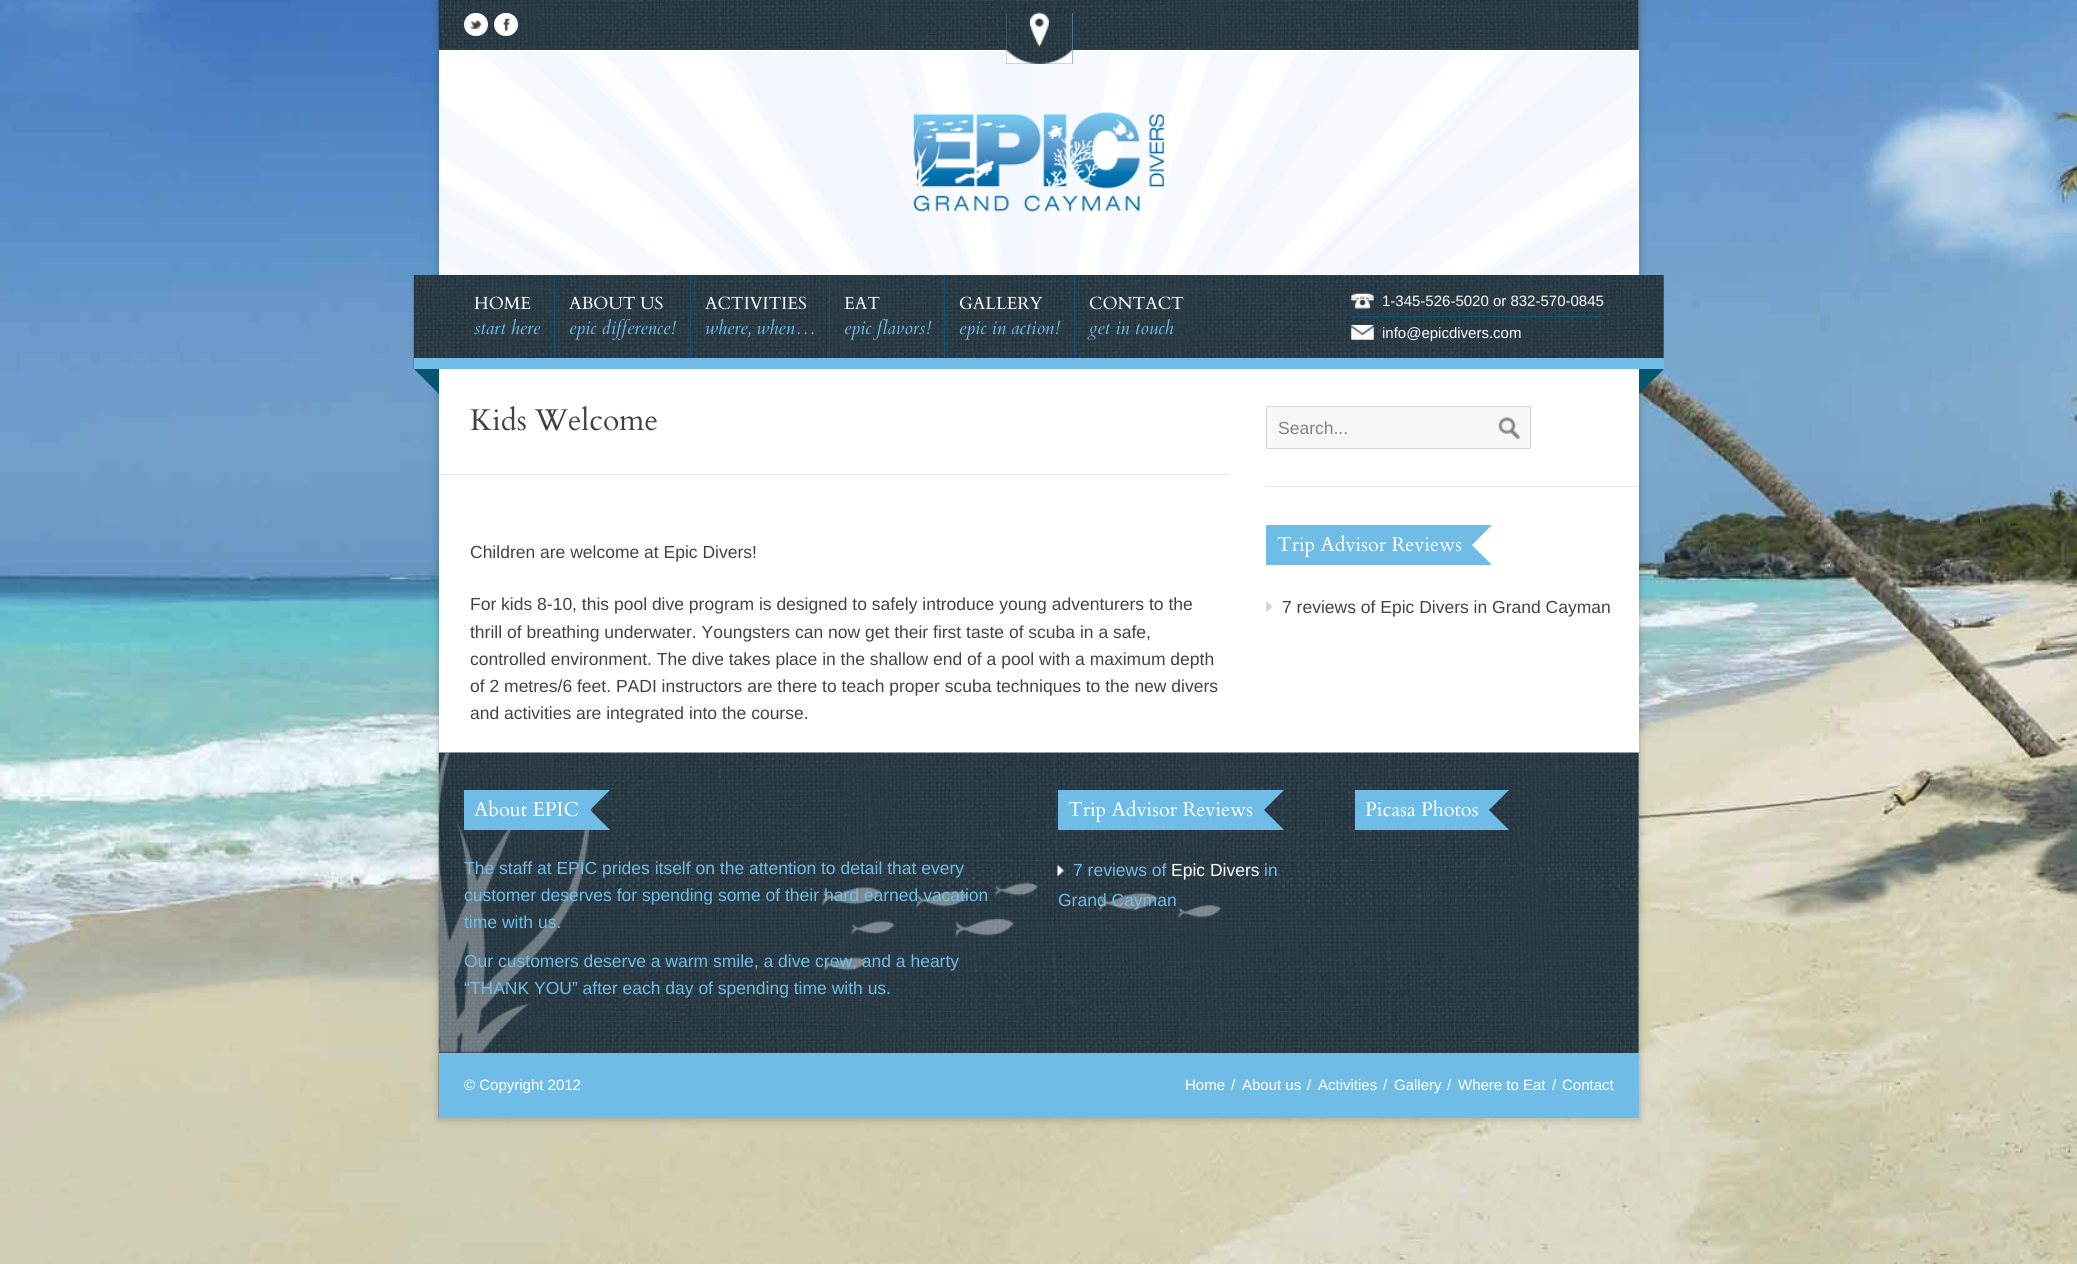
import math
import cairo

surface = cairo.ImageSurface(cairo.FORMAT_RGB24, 2077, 1264)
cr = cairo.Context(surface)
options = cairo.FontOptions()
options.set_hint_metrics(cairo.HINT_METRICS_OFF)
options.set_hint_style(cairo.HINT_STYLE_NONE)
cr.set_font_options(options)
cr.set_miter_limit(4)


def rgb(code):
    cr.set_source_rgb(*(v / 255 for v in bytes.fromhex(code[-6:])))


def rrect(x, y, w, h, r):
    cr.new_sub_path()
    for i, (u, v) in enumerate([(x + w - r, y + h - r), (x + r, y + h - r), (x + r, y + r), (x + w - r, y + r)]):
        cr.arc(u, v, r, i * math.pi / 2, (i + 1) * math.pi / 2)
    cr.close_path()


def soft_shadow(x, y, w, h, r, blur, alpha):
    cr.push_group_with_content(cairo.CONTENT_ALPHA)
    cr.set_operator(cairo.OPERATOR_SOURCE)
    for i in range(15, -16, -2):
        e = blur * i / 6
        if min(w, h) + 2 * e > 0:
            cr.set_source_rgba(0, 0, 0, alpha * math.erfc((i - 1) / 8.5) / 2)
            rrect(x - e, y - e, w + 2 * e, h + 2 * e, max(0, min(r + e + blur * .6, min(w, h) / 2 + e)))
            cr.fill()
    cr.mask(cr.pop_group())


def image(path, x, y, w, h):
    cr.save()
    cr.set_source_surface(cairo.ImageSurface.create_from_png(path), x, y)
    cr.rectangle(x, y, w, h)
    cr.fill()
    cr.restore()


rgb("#ffffff")
cr.paint()
image("img/1.png", 0, 0, 2077, 1264)
rgb("#000000")
soft_shadow(438, 0, 1202, 1120, 0, 4, 0.2)
rgb("#ffffff")
cr.rectangle(439, 0, 1200, 1053)
cr.fill()
image("img/2.png", 438, 0, 1201, 50)
rrect(464, 13, 24, 23, 11.5)
cr.fill()
image("img/3.png", 469, 20, 14, 10)
rrect(494, 13, 24, 23, 11.5)
cr.fill()
image("img/4.png", 502, 18, 9, 14)
image("img/8.png", 439, 51, 1200, 224)
rgb("#6fbde6")
cr.rectangle(1006, 13, 67, 51)
cr.fill()
image("img/5.png", 1006, 12, 67, 52)
image("img/6.png", 1030, 12, 19, 35)
image("img/7.png", 1006, 50, 67, 14)
image("img/9.png", 913, 112, 251, 100)
image("img/10.png", 413, 275, 1251, 94)
for x, y, w, h, color in [
    (414, 358, 1250, 11, "#6fbde6"),
    (554, 275, 1, 83, "#11537b"),
    (690, 275, 1, 83, "#11537b"),
    (829, 275, 1, 83, "#11537b"),
    (944, 275, 1, 83, "#11537b"),
    (1074, 275, 1, 83, "#11537b"),
]:
    rgb(color)
    cr.rectangle(x, y, w, h)
    cr.fill()
image("img/11.png", 1351, 293, 23, 16)
cr.rectangle(1351, 316, 253, 1)
cr.fill()
image("img/12.png", 1351, 325, 23, 15)
rgb("#06556e")
cr.new_path()
cr.move_to(414, 369)
cr.line_to(439, 369)
cr.line_to(439, 394)
cr.close_path()
cr.fill()
cr.new_path()
cr.move_to(1639, 369)
cr.line_to(1664, 369)
cr.line_to(1639, 394)
cr.close_path()
cr.fill()
for x, y, w, h, color in [
    (439, 474, 790, 1, "#e3e3e3"),
    (1266, 486, 373, 1, "#e3e3e3"),
    (1267, 407, 263, 41, "#f7f7f7"),
]:
    rgb(color)
    cr.rectangle(x, y, w, h)
    cr.fill()
image("img/13.png", 1498, 417, 22, 22)
cr.rectangle(1266.5, 406.5, 264, 42)
rgb("#d4d8d9")
cr.set_line_width(1)
cr.stroke()
rgb("#6fbde6")
cr.rectangle(1266, 525, 205, 40)
cr.fill()
image("img/14.png", 1266, 601, 7, 12)
image("img/15.png", 438, 752, 1201, 366)
image("img/16.png", 438, 752, 784, 301)
cr.rectangle(464, 790, 125, 40)
cr.fill()
cr.rectangle(1058, 790, 204, 40)
cr.fill()
image("img/17.png", 1057, 865, 7, 12)
cr.rectangle(1355, 790, 133, 40)
cr.fill()
cr.rectangle(439, 1053, 1200, 65)
cr.fill()
cr.select_font_face("Cardo")
cr.set_font_size(17.5)
rgb("#ffffff")
cr.move_to(474, 309)
cr.show_text("HOME")
cr.select_font_face("Cardo", cairo.FONT_SLANT_ITALIC)
cr.set_font_size(18.75)
rgb("#6fbde6")
cr.move_to(474, 334)
cr.show_text("start here")
cr.select_font_face("Cardo")
cr.set_font_size(17.5)
rgb("#ffffff")
cr.move_to(569, 309)
cr.show_text("ABOUT US")
cr.select_font_face("Cardo", cairo.FONT_SLANT_ITALIC)
cr.set_font_size(18.75)
rgb("#6fbde6")
cr.move_to(569, 334)
cr.show_text("epic difference!")
cr.select_font_face("Cardo")
cr.set_font_size(17.5)
rgb("#ffffff")
cr.move_to(705, 309)
cr.show_text("ACTIVITIES")
cr.select_font_face("Cardo", cairo.FONT_SLANT_ITALIC)
cr.set_font_size(18.75)
rgb("#6fbde6")
cr.move_to(705, 334)
cr.show_text("where, when…")
cr.select_font_face("Cardo")
cr.set_font_size(17.5)
rgb("#ffffff")
cr.move_to(844, 309)
cr.show_text("EAT")
cr.select_font_face("Cardo", cairo.FONT_SLANT_ITALIC)
cr.set_font_size(18.75)
rgb("#6fbde6")
cr.move_to(844, 334)
cr.show_text("epic flavors!")
cr.select_font_face("Cardo")
cr.set_font_size(17.5)
rgb("#ffffff")
cr.move_to(959, 309)
cr.show_text("GALLERY")
cr.select_font_face("Cardo", cairo.FONT_SLANT_ITALIC)
cr.set_font_size(18.75)
rgb("#6fbde6")
cr.move_to(959, 334)
cr.show_text("epic in action!")
cr.select_font_face("Cardo")
cr.set_font_size(17.5)
rgb("#ffffff")
cr.move_to(1089, 309)
cr.show_text("CONTACT")
cr.select_font_face("Cardo", cairo.FONT_SLANT_ITALIC)
cr.set_font_size(18.75)
rgb("#6fbde6")
cr.move_to(1089, 334)
cr.show_text("get in touch")
cr.select_font_face("Liberation Sans")
cr.set_font_size(15)
rgb("#ffffff")
cr.move_to(1382, 306)
cr.show_text("1-345-526-5020 or 832-570-0845")
cr.move_to(1382, 338)
cr.show_text("info@epicdivers.com")
cr.select_font_face("Cardo")
cr.set_font_size(30)
rgb("#424242")
cr.move_to(470, 430)
cr.show_text("Kids Welcome")
cr.select_font_face("Liberation Sans")
cr.set_font_size(17.5)
for x, y, s in [
    (470, 558, "Children are welcome at Epic Divers!"),
    (470, 610, "For kids 8-10, this pool dive program is designed to safely introduce young adventurers to the"),
    (470, 638, "thrill of breathing underwater. Youngsters can now get their first taste of scuba in a safe,"),
    (470, 665, "controlled environment. The dive takes place in the shallow end of a pool with a maximum depth"),
    (470, 692, "of 2 metres/6 feet. PADI instructors are there to teach proper scuba techniques to the new divers"),
    (470, 719, "and activities are integrated into the course."),
]:
    cr.move_to(x, y)
    cr.show_text(s)
rgb("#818181")
cr.move_to(1278, 434)
cr.show_text("Search...")
cr.select_font_face("Cardo")
cr.set_font_size(20)
rgb("#ffffff")
cr.move_to(1277, 551)
cr.show_text("Trip Advisor Reviews")
rgb("#6fbde6")
cr.new_path()
cr.move_to(1451, 525)
cr.line_to(1492, 525)
cr.line_to(1472, 545)
cr.line_to(1471, 545)
cr.close_path()
cr.move_to(1492, 565)
cr.line_to(1451, 565)
cr.line_to(1471, 545)
cr.line_to(1472, 545)
cr.close_path()
cr.fill()
cr.select_font_face("Liberation Sans")
cr.set_font_size(17.5)
rgb("#424242")
cr.move_to(1282, 613)
cr.show_text("7 reviews of Epic Divers in Grand Cayman")
cr.select_font_face("Cardo")
cr.set_font_size(20)
rgb("#ffffff")
cr.move_to(474, 816)
cr.show_text("About EPIC")
rgb("#6fbde6")
cr.new_path()
cr.move_to(569, 790)
cr.line_to(610, 790)
cr.line_to(590, 810)
cr.line_to(589, 810)
cr.close_path()
cr.move_to(610, 830)
cr.line_to(569, 830)
cr.line_to(589, 810)
cr.line_to(590, 810)
cr.close_path()
cr.fill()
cr.select_font_face("Liberation Sans")
cr.set_font_size(17.5)
for x, y, s in [
    (464, 874, "The staff at EPIC prides itself on the attention to detail that every"),
    (464, 901, "customer deserves for spending some of their hard earned vacation"),
    (464, 928, "time with us."),
    (464, 967, "Our customers deserve a warm smile, a dive crew, and a hearty"),
    (464, 994, "“THANK YOU” after each day of spending time with us."),
]:
    cr.move_to(x, y)
    cr.show_text(s)
cr.select_font_face("Cardo")
cr.set_font_size(20)
rgb("#ffffff")
cr.move_to(1068, 816)
cr.show_text("Trip Advisor Reviews")
rgb("#6fbde6")
cr.new_path()
cr.move_to(1242, 790)
cr.line_to(1284, 790)
cr.line_to(1264, 810)
cr.line_to(1262, 810)
cr.close_path()
cr.move_to(1284, 830)
cr.line_to(1242, 830)
cr.line_to(1262, 810)
cr.line_to(1264, 810)
cr.close_path()
cr.fill()
cr.select_font_face("Liberation Sans")
cr.set_font_size(17.5)
cr.move_to(1073, 876)
cr.show_text("7 reviews of")
rgb("#ffffff")
cr.move_to(1171, 876)
cr.show_text("Epic Divers")
rgb("#6fbde6")
cr.move_to(1264, 876)
cr.show_text("in")
cr.move_to(1058, 906)
cr.show_text("Grand Cayman")
cr.select_font_face("Cardo")
cr.set_font_size(20)
rgb("#ffffff")
cr.move_to(1365, 816)
cr.show_text("Picasa Photos")
rgb("#6fbde6")
cr.new_path()
cr.move_to(1468, 790)
cr.line_to(1509, 790)
cr.line_to(1489, 810)
cr.line_to(1488, 810)
cr.close_path()
cr.move_to(1509, 830)
cr.line_to(1468, 830)
cr.line_to(1488, 810)
cr.line_to(1489, 810)
cr.close_path()
cr.fill()
cr.select_font_face("Liberation Sans")
cr.set_font_size(15)
rgb("#ffffff")
for x, y, s in [
    (464, 1090, "© Copyright 2012"),
    (1185, 1090, "Home"),
    (1231, 1090, "/"),
    (1242, 1090, "About us"),
    (1307, 1090, "/"),
    (1318, 1090, "Activities"),
    (1383, 1090, "/"),
    (1394, 1090, "Gallery"),
    (1447, 1090, "/"),
    (1458, 1090, "Where to Eat"),
    (1552, 1090, "/"),
    (1562, 1090, "Contact"),
]:
    cr.move_to(x, y)
    cr.show_text(s)
surface.write_to_png("page.png")
